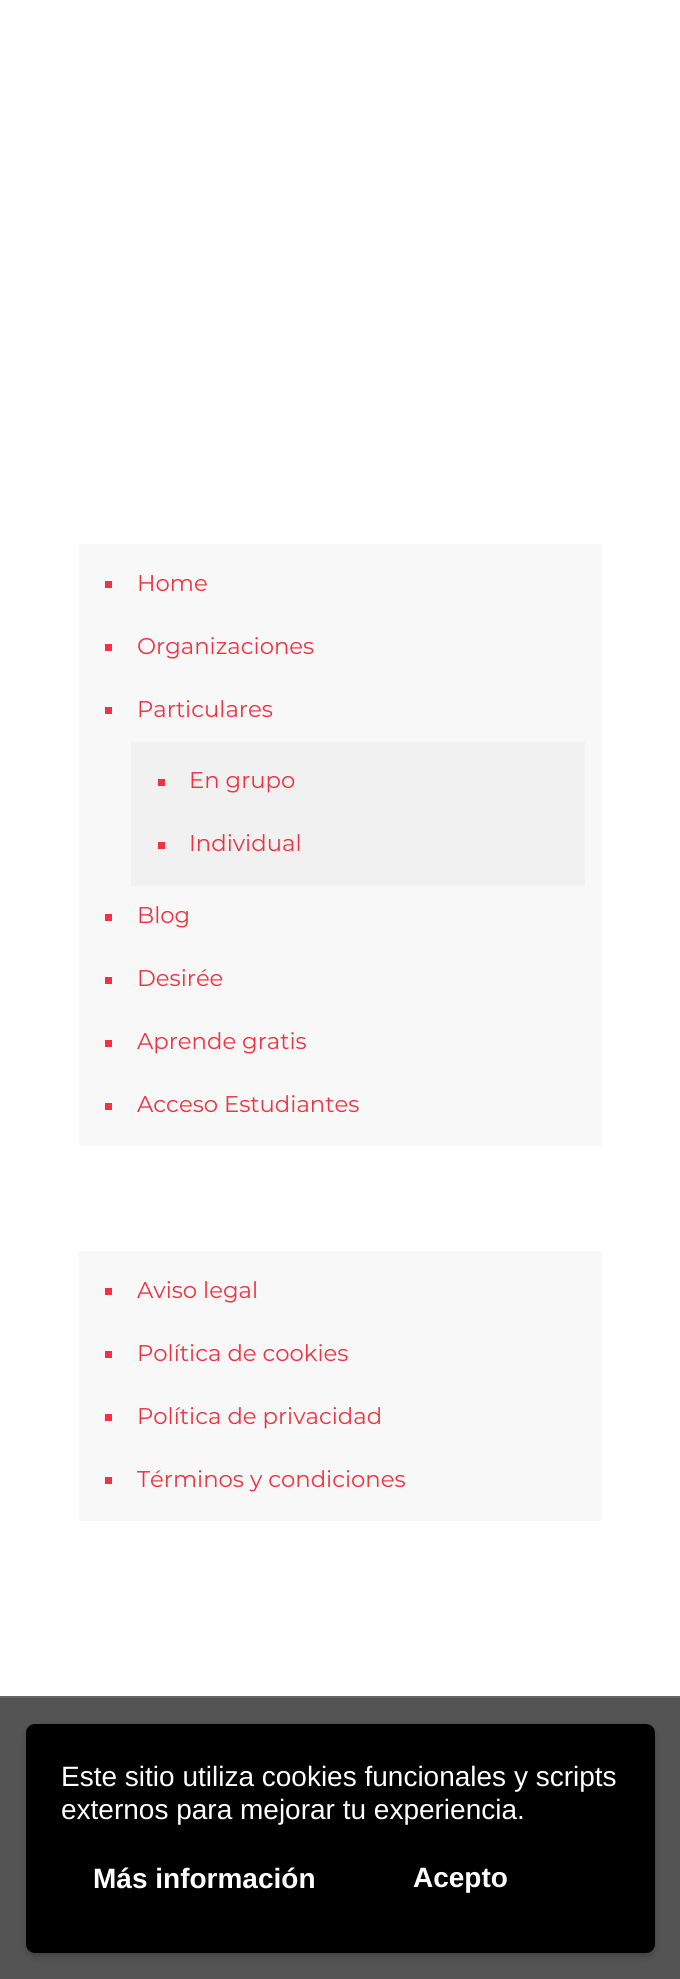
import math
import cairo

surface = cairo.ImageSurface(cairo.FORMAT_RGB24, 680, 1979)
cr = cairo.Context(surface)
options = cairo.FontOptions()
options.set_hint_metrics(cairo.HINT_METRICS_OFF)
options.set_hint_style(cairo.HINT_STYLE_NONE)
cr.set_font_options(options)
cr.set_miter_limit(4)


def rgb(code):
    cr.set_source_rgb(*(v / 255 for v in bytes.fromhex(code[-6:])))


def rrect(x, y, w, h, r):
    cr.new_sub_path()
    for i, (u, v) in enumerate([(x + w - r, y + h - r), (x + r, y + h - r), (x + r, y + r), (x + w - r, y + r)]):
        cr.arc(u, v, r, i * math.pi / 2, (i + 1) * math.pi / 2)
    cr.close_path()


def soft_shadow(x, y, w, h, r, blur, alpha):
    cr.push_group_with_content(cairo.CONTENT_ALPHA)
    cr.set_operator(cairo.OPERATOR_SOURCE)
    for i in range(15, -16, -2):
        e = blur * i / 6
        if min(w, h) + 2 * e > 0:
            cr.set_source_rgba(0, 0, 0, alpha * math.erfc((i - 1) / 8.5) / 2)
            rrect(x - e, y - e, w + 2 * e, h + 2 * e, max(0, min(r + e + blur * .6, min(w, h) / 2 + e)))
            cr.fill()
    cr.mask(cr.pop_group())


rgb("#ffffff")
cr.paint()
for x, y, w, h, color in [
    (0, 1698, 680, 281, "#545454"),
    (79, 544, 523, 602, "#f8f8f8"),
    (105, 581, 7, 7, "#ef3340"),
    (105, 644, 7, 7, "#ef3340"),
    (105, 707, 7, 7, "#ef3340"),
    (131, 742, 454, 144, "#f1f1f1"),
    (158, 779, 7, 7, "#ef3340"),
    (158, 842, 7, 7, "#ef3340"),
    (105, 914, 7, 7, "#ef3340"),
    (105, 977, 7, 7, "#ef3340"),
    (105, 1040, 7, 7, "#ef3340"),
    (105, 1103, 7, 7, "#ef3340"),
    (79, 1251, 523, 270, "#f8f8f8"),
    (105, 1288, 7, 7, "#ef3340"),
    (105, 1351, 7, 7, "#ef3340"),
    (105, 1414, 7, 7, "#ef3340"),
    (105, 1477, 7, 7, "#ef3340"),
    (0, 1696, 680, 2, "#656565"),
]:
    rgb(color)
    cr.rectangle(x, y, w, h)
    cr.fill()
rgb("#000000")
soft_shadow(26, 1727, 629, 230, 9, 3.5, 0.2)
rgb("#000000")
rrect(26, 1724, 629, 229, 9)
cr.fill()
cr.select_font_face("Montserrat")
cr.set_font_size(22.75)
rgb("#ef3340")
for x, y, s in [
    (137, 591, "Home"),
    (137, 654, "Organizaciones"),
    (137, 717, "Particulares"),
    (189, 788, "En grupo"),
    (189, 851, "Individual"),
    (137, 923, "Blog"),
    (137, 986, "Desirée"),
    (137, 1049, "Aprende gratis"),
    (137, 1112, "Acceso Estudiantes"),
    (137, 1298, "Aviso legal"),
    (137, 1361, "Política de cookies"),
    (137, 1424, "Política de privacidad"),
    (137, 1487, "Términos y condiciones"),
]:
    cr.move_to(x, y)
    cr.show_text(s)
cr.select_font_face("Liberation Sans")
cr.set_font_size(28)
rgb("#ffffff")
cr.move_to(61, 1786)
cr.show_text("Este sitio utiliza cookies funcionales y scripts")
cr.move_to(61, 1819)
cr.show_text("externos para mejorar tu experiencia.")
cr.select_font_face("Liberation Sans", cairo.FONT_SLANT_NORMAL, cairo.FONT_WEIGHT_BOLD)
cr.move_to(93, 1888)
cr.show_text("Más información")
cr.move_to(413, 1887)
cr.show_text("Acepto")
surface.write_to_png("page.png")
